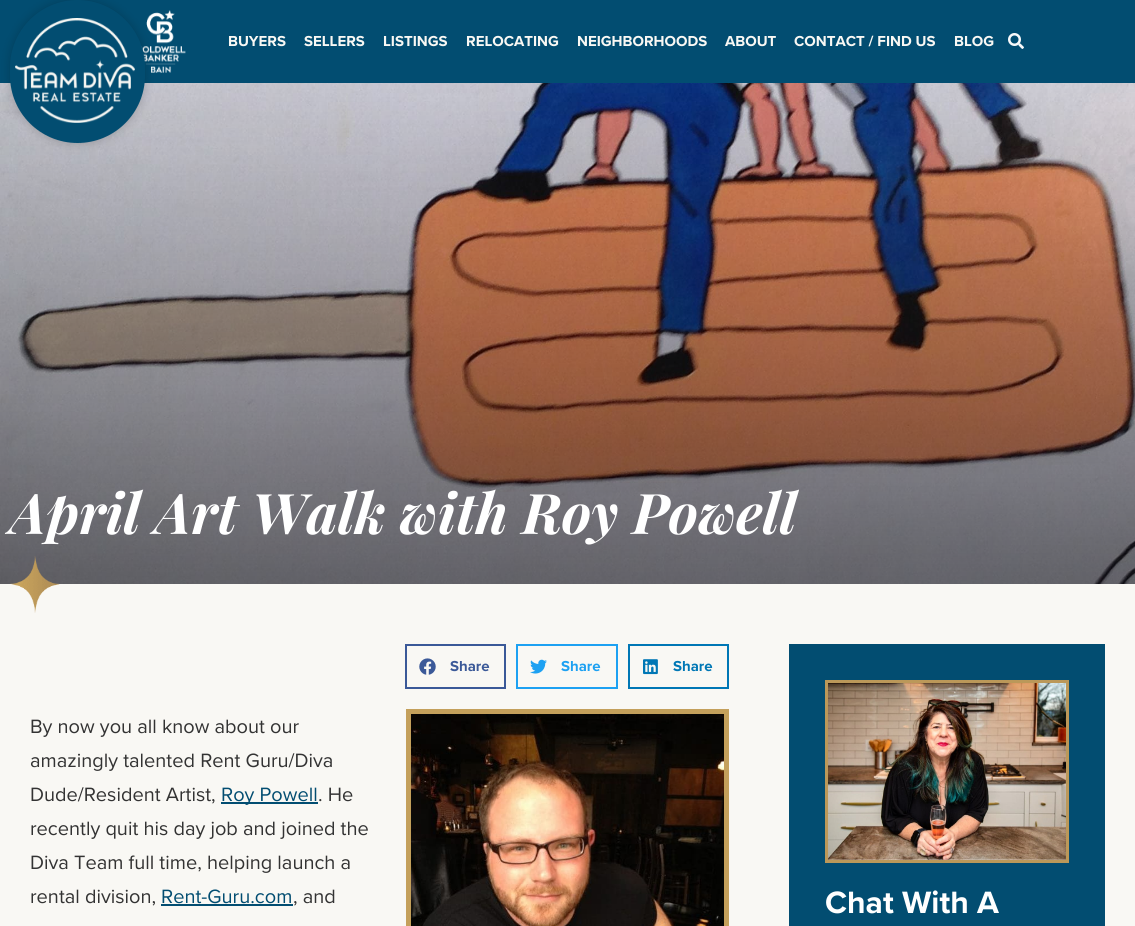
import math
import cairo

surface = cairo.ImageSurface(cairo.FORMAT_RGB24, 1135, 926)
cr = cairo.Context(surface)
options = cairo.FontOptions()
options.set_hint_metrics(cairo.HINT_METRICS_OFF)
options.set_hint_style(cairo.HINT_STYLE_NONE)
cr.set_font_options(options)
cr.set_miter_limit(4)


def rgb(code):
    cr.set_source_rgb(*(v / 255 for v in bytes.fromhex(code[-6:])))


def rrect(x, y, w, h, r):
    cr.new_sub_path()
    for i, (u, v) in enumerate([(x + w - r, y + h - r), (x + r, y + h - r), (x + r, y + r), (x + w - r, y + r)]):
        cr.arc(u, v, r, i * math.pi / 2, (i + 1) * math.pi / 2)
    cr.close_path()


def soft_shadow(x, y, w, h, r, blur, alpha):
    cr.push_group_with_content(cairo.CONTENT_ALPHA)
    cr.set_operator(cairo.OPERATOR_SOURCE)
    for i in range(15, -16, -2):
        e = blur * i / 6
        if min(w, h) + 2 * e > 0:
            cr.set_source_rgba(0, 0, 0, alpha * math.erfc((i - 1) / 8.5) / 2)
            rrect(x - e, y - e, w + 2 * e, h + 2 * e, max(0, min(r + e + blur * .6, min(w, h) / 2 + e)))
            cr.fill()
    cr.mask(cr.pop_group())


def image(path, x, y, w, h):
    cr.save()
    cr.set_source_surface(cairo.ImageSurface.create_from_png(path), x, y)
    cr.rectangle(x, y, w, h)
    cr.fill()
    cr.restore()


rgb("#f9f8f4")
cr.paint()
rgb("#024d71")
cr.rectangle(0, 0, 1135, 83)
cr.fill()
image("img/2.png", 141, 10, 45, 63)
image("img/4.png", 0, 83, 1135, 501)
rgb("#000000")
soft_shadow(10, 0, 135, 143, 67.5, 5, 0.2)
rgb("#024d71")
rrect(10, 0, 135, 143, 67.5)
cr.fill()
image("img/1.png", 15, 18, 120, 105)
image("img/3.png", 1008, 33, 16, 16)
image("img/5.png", 10, 556, 50, 57)
cr.rectangle(406, 645, 99, 43)
rgb("#3b5998")
cr.stroke()
image("img/6.png", 419, 658, 17, 17)
cr.rectangle(517, 645, 100, 43)
rgb("#1da1f2")
cr.stroke()
image("img/7.png", 530, 659, 17, 15)
cr.rectangle(629, 645, 99, 43)
rgb("#0077b5")
cr.stroke()
image("img/8.png", 643, 659, 15, 16)
cr.rectangle(408.5, 711.5, 318, 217)
rgb("#c4a05b")
cr.set_line_width(5)
cr.stroke()
image("img/9.png", 411, 714, 313, 212)
for x, y, w, h, color in [
    (221, 802, 97, 2, "#024d71"),
    (161, 904, 132, 2, "#024d71"),
    (789, 644, 316, 282, "#024d71"),
]:
    rgb(color)
    cr.rectangle(x, y, w, h)
    cr.fill()
cr.rectangle(826.5, 681.5, 241, 180)
rgb("#bb9859")
cr.set_line_width(3)
cr.stroke()
image("img/10.png", 828, 683, 238, 177)
cr.select_font_face("Proxima Nova", cairo.FONT_SLANT_NORMAL, cairo.FONT_WEIGHT_BOLD)
cr.set_font_size(15)
rgb("#f9f8f4")
for x, y, s in [
    (228, 46, "BUYERS"),
    (304, 46, "SELLERS"),
    (383, 46, "LISTINGS"),
    (466, 46, "RELOCATING"),
    (577, 46, "NEIGHBORHOODS"),
    (725, 46, "ABOUT"),
    (794, 46, "CONTACT / FIND US"),
    (954, 46, "BLOG"),
]:
    cr.move_to(x, y)
    cr.show_text(s)
cr.select_font_face("Playfair Display", cairo.FONT_SLANT_ITALIC, cairo.FONT_WEIGHT_BOLD)
cr.set_font_size(56)
rgb("#ffffff")
cr.move_to(10, 534)
cr.show_text("April Art Walk with Roy Powell")
cr.select_font_face("Proxima Nova", cairo.FONT_SLANT_NORMAL, cairo.FONT_WEIGHT_BOLD)
cr.set_font_size(15)
rgb("#3b5998")
cr.move_to(450, 671)
cr.show_text("Share")
rgb("#1da1f2")
cr.move_to(561, 671)
cr.show_text("Share")
rgb("#0077b5")
cr.move_to(673, 671)
cr.show_text("Share")
cr.select_font_face("Proxima Nova")
cr.set_font_size(20)
rgb("#333333")
for x, y, s in [
    (30, 733, "By now you all know about our"),
    (30, 767, "amazingly talented Rent Guru/Diva"),
    (30, 801, "Dude/Resident Artist,"),
]:
    cr.move_to(x, y)
    cr.show_text(s)
rgb("#024d71")
cr.move_to(221, 801)
cr.show_text("Roy Powell")
rgb("#333333")
for x, y, s in [
    (318, 801, ". He"),
    (30, 835, "recently quit his day job and joined the"),
    (30, 869, "Diva Team full time, helping launch a"),
    (30, 903, "rental division,"),
]:
    cr.move_to(x, y)
    cr.show_text(s)
rgb("#024d71")
cr.move_to(161, 903)
cr.show_text("Rent-Guru.com")
rgb("#333333")
cr.move_to(293, 903)
cr.show_text(", and")
cr.select_font_face("Proxima Nova", cairo.FONT_SLANT_NORMAL, cairo.FONT_WEIGHT_BOLD)
cr.set_font_size(32)
rgb("#ffffff")
cr.move_to(825, 913)
cr.show_text("Chat With A")
surface.write_to_png("page.png")
